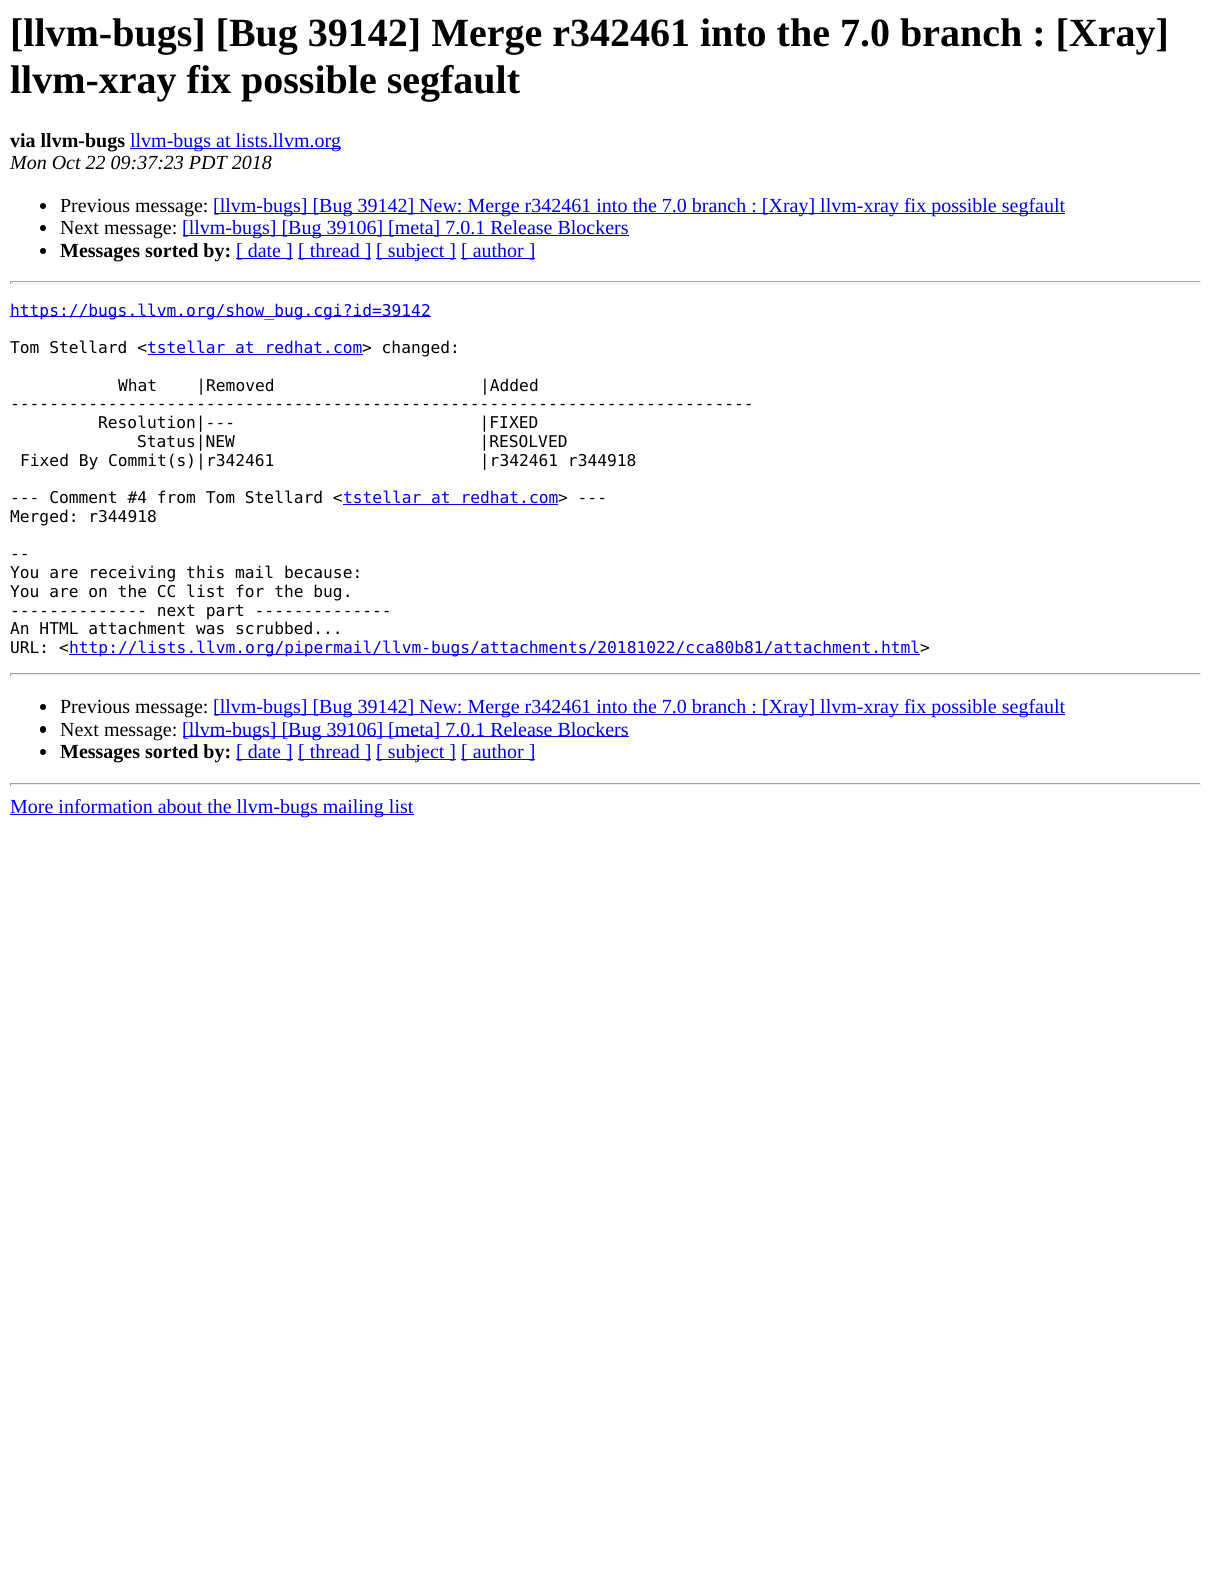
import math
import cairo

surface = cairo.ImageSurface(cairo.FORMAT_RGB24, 1211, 1594)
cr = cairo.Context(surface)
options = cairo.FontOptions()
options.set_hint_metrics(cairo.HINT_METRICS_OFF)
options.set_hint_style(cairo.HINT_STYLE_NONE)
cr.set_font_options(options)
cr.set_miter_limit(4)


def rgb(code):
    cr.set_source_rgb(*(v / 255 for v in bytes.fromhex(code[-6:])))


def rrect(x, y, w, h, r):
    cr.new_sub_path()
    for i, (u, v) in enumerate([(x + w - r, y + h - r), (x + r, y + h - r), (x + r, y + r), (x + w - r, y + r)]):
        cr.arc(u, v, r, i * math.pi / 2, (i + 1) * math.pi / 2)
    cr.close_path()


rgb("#ffffff")
cr.paint()
rgb("#0000ee")
cr.rectangle(130, 148, 211, 1)
cr.fill()
rgb("#000000")
cr.arc(43, 206, 3, 0, 2 * math.pi)
cr.fill()
rgb("#0000ee")
cr.rectangle(214, 213, 851, 1)
cr.fill()
rgb("#000000")
cr.arc(43, 228, 3, 0, 2 * math.pi)
cr.fill()
rgb("#0000ee")
cr.rectangle(183, 235, 446, 1)
cr.fill()
rgb("#000000")
cr.arc(43, 251, 3, 0, 2 * math.pi)
cr.fill()
for x, y, w, h, color in [
    (236, 258, 57, 1, "#0000ee"),
    (298, 258, 73, 1, "#0000ee"),
    (376, 258, 80, 1, "#0000ee"),
    (461, 258, 74, 1, "#0000ee"),
    (10, 281, 1191, 1, "#9f9f9f"),
    (1200, 281, 1, 3, "#eeeeee"),
    (10, 283, 1191, 1, "#eeeeee"),
    (10, 281, 1, 3, "#9f9f9f"),
    (10, 316, 421, 1, "#0000ee"),
    (148, 354, 215, 1, "#0000ee"),
    (343, 504, 215, 1, "#0000ee"),
    (69, 654, 851, 1, "#0000ee"),
    (10, 673, 1191, 1, "#9f9f9f"),
    (1200, 673, 1, 3, "#eeeeee"),
    (10, 674, 1191, 1, "#eeeeee"),
    (10, 673, 1, 3, "#9f9f9f"),
]:
    rgb(color)
    cr.rectangle(x, y, w, h)
    cr.fill()
rgb("#000000")
cr.arc(43, 707, 3, 0, 2 * math.pi)
cr.fill()
rgb("#0000ee")
cr.rectangle(214, 714, 851, 1)
cr.fill()
rgb("#000000")
rrect(40, 726, 6, 7, 3)
cr.fill()
rgb("#0000ee")
cr.rectangle(183, 736, 446, 1)
cr.fill()
rgb("#000000")
cr.arc(43, 752, 3, 0, 2 * math.pi)
cr.fill()
for x, y, w, h, color in [
    (236, 759, 57, 1, "#0000ee"),
    (298, 759, 73, 1, "#0000ee"),
    (376, 759, 80, 1, "#0000ee"),
    (461, 759, 74, 1, "#0000ee"),
    (10, 783, 1191, 1, "#9f9f9f"),
    (1200, 783, 1, 3, "#eeeeee"),
    (10, 784, 1191, 1, "#eeeeee"),
    (10, 783, 1, 3, "#9f9f9f"),
    (10, 814, 404, 1, "#0000ee"),
]:
    rgb(color)
    cr.rectangle(x, y, w, h)
    cr.fill()
cr.select_font_face("Liberation Serif", cairo.FONT_SLANT_NORMAL, cairo.FONT_WEIGHT_BOLD)
cr.set_font_size(40)
rgb("#000000")
cr.move_to(10, 46)
cr.show_text("[llvm-bugs] [Bug 39142] Merge r342461 into the 7.0 branch : [Xray]")
cr.move_to(10, 93)
cr.show_text("llvm-xray fix possible segfault")
cr.set_font_size(20)
cr.move_to(10, 147)
cr.show_text("via llvm-bugs")
cr.select_font_face("Liberation Serif")
rgb("#0000ee")
cr.move_to(130, 147)
cr.show_text("llvm-bugs at lists.llvm.org")
cr.select_font_face("Liberation Serif", cairo.FONT_SLANT_ITALIC)
rgb("#000000")
cr.move_to(10, 169)
cr.show_text("Mon Oct 22 09:37:23 PDT 2018")
cr.select_font_face("Liberation Serif")
cr.move_to(60, 212)
cr.show_text("Previous message:")
rgb("#0000ee")
cr.move_to(213, 212)
cr.show_text("[llvm-bugs] [Bug 39142] New: Merge r342461 into the 7.0 branch : [Xray] llvm-xray fix possible segfault")
rgb("#000000")
cr.move_to(60, 234)
cr.show_text("Next message:")
rgb("#0000ee")
cr.move_to(182, 234)
cr.show_text("[llvm-bugs] [Bug 39106] [meta] 7.0.1 Release Blockers")
cr.select_font_face("Liberation Serif", cairo.FONT_SLANT_NORMAL, cairo.FONT_WEIGHT_BOLD)
rgb("#000000")
cr.move_to(60, 257)
cr.show_text("Messages sorted by:")
cr.select_font_face("Liberation Serif")
rgb("#0000ee")
for x, y, s in [
    (236, 257, "[ date ]"),
    (298, 257, "[ thread ]"),
    (376, 257, "[ subject ]"),
    (461, 257, "[ author ]"),
]:
    cr.move_to(x, y)
    cr.show_text(s)
cr.select_font_face("DejaVu Sans Mono")
cr.set_font_size(16.25)
cr.move_to(10, 316)
cr.show_text("https://bugs.llvm.org/show_bug.cgi?id=39142")
rgb("#000000")
cr.move_to(10, 353)
cr.show_text("Tom Stellard <")
rgb("#0000ee")
cr.move_to(147, 353)
cr.show_text("tstellar at redhat.com")
rgb("#000000")
for x, y, s in [
    (362, 353, "> changed:"),
    (118, 391, "What    |Removed                     |Added"),
    (10, 409, "----------------------------------------------------------------------------"),
    (98, 428, "Resolution|---                         |FIXED"),
    (137, 447, "Status|NEW                         |RESOLVED"),
    (20, 466, "Fixed By Commit(s)|r342461                     |r342461 r344918"),
    (10, 503, "--- Comment #4 from Tom Stellard <"),
]:
    cr.move_to(x, y)
    cr.show_text(s)
rgb("#0000ee")
cr.move_to(343, 503)
cr.show_text("tstellar at redhat.com")
rgb("#000000")
for x, y, s in [
    (558, 503, "> ---"),
    (10, 522, "Merged: r344918"),
    (10, 559, "--"),
    (10, 578, "You are receiving this mail because:"),
    (10, 597, "You are on the CC list for the bug."),
    (10, 616, "-------------- next part --------------"),
    (10, 634, "An HTML attachment was scrubbed..."),
    (10, 653, "URL: <"),
]:
    cr.move_to(x, y)
    cr.show_text(s)
rgb("#0000ee")
cr.move_to(69, 653)
cr.show_text("http://lists.llvm.org/pipermail/llvm-bugs/attachments/20181022/cca80b81/attachment.html")
rgb("#000000")
cr.move_to(920, 653)
cr.show_text(">")
cr.select_font_face("Liberation Serif")
cr.set_font_size(20)
cr.move_to(60, 713)
cr.show_text("Previous message:")
rgb("#0000ee")
cr.move_to(213, 713)
cr.show_text("[llvm-bugs] [Bug 39142] New: Merge r342461 into the 7.0 branch : [Xray] llvm-xray fix possible segfault")
rgb("#000000")
cr.move_to(60, 736)
cr.show_text("Next message:")
rgb("#0000ee")
cr.move_to(182, 736)
cr.show_text("[llvm-bugs] [Bug 39106] [meta] 7.0.1 Release Blockers")
cr.select_font_face("Liberation Serif", cairo.FONT_SLANT_NORMAL, cairo.FONT_WEIGHT_BOLD)
rgb("#000000")
cr.move_to(60, 758)
cr.show_text("Messages sorted by:")
cr.select_font_face("Liberation Serif")
rgb("#0000ee")
for x, y, s in [
    (236, 758, "[ date ]"),
    (298, 758, "[ thread ]"),
    (376, 758, "[ subject ]"),
    (461, 758, "[ author ]"),
    (10, 813, "More information about the llvm-bugs mailing list"),
]:
    cr.move_to(x, y)
    cr.show_text(s)
surface.write_to_png("page.png")
